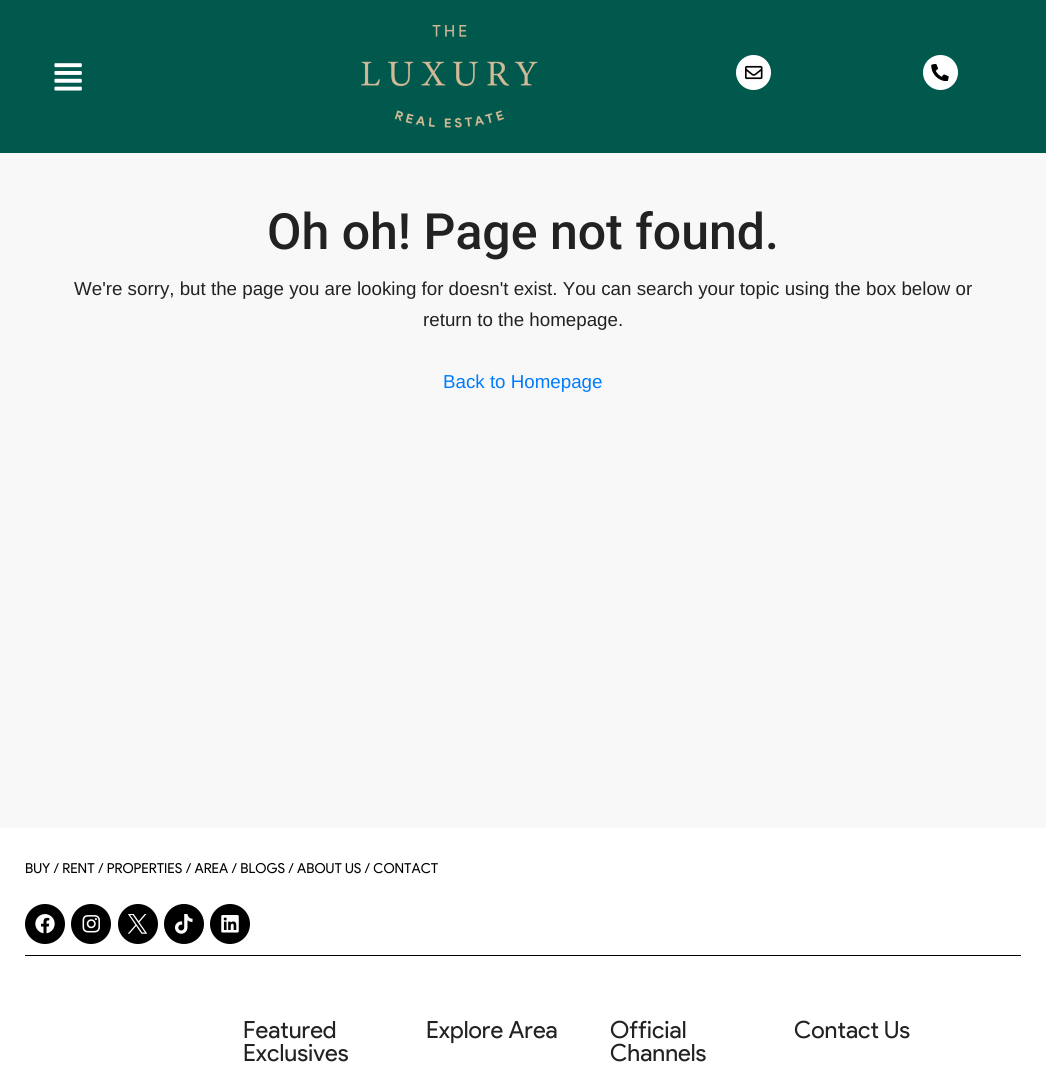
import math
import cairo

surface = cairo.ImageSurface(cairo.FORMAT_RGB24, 1046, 1074)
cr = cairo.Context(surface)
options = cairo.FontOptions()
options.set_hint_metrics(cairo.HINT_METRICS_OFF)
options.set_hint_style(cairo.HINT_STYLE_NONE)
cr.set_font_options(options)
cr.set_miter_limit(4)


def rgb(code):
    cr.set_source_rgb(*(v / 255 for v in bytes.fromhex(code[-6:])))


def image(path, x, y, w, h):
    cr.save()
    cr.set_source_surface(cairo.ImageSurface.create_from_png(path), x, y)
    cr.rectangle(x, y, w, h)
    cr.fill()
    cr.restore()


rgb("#f8f8f8")
cr.paint()
rgb("#00594c")
cr.rectangle(0, 0, 1046, 153)
cr.fill()
image("img/1.png", 54, 63, 28, 28)
image("img/2.png", 361, 25, 177, 103)
rgb("#ffffff")
cr.arc(753.5, 72.5, 17.5, 0, 2 * math.pi)
cr.fill()
image("img/3.png", 745, 65, 18, 15)
cr.arc(940.5, 72.5, 17.5, 0, 2 * math.pi)
cr.fill()
image("img/4.png", 931, 64, 18, 17)
cr.rectangle(0, 828, 1046, 246)
cr.fill()
rgb("#000000")
cr.arc(45, 924, 20, 0, 2 * math.pi)
cr.fill()
image("img/5.png", 35, 914, 20, 20)
cr.arc(91, 924, 20, 0, 2 * math.pi)
cr.fill()
image("img/6.png", 82, 915, 18, 18)
cr.arc(138, 924, 20, 0, 2 * math.pi)
cr.fill()
image("img/7.png", 128, 914, 20, 20)
cr.arc(184, 924, 20, 0, 2 * math.pi)
cr.fill()
image("img/8.png", 175, 914, 18, 20)
cr.arc(230, 924, 20, 0, 2 * math.pi)
cr.fill()
image("img/9.png", 221, 915, 18, 18)
cr.rectangle(25, 955, 996, 1)
cr.fill()
cr.select_font_face("Roboto Medium")
cr.set_font_size(50)
rgb("#222222")
cr.move_to(267, 249)
cr.show_text("Oh oh! Page not found.")
cr.select_font_face("Liberation Sans")
cr.set_font_size(18.75)
cr.move_to(74, 295)
cr.show_text("We're sorry, but the page you are looking for doesn't exist. You can search your topic using the box below or")
cr.move_to(423, 326)
cr.show_text("return to the homepage.")
rgb("#007bff")
cr.move_to(443, 388)
cr.show_text("Back to Homepage")
cr.select_font_face("Product Sans")
cr.set_font_size(13.75)
rgb("#000000")
cr.move_to(25, 873)
cr.show_text("BUY / RENT / PROPERTIES / AREA / BLOGS / ABOUT US / CONTACT")
cr.set_font_size(23.75)
rgb("#222222")
for x, y, s in [
    (243, 1038, "Featured"),
    (243, 1061, "Exclusives"),
    (426, 1038, "Explore Area"),
    (610, 1038, "Official"),
    (610, 1061, "Channels"),
    (794, 1038, "Contact Us"),
]:
    cr.move_to(x, y)
    cr.show_text(s)
surface.write_to_png("page.png")
